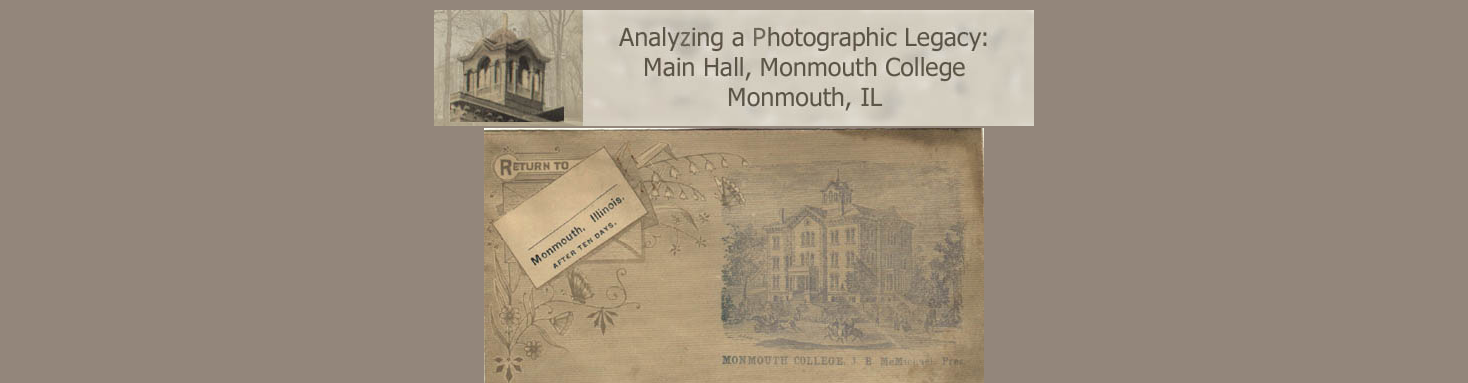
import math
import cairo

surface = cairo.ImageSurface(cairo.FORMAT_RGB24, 1468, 383)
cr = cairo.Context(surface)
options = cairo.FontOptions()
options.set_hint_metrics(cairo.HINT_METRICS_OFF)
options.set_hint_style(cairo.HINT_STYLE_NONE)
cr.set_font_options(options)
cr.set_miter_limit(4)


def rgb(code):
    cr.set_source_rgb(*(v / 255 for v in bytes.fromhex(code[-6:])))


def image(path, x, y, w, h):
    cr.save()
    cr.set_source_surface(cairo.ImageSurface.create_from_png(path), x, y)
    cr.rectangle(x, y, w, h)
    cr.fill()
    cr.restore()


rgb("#93867b")
cr.paint()
image("img/1.png", 434, 10, 600, 116)
image("img/2.png", 484, 128, 500, 255)
surface.write_to_png("page.png")
